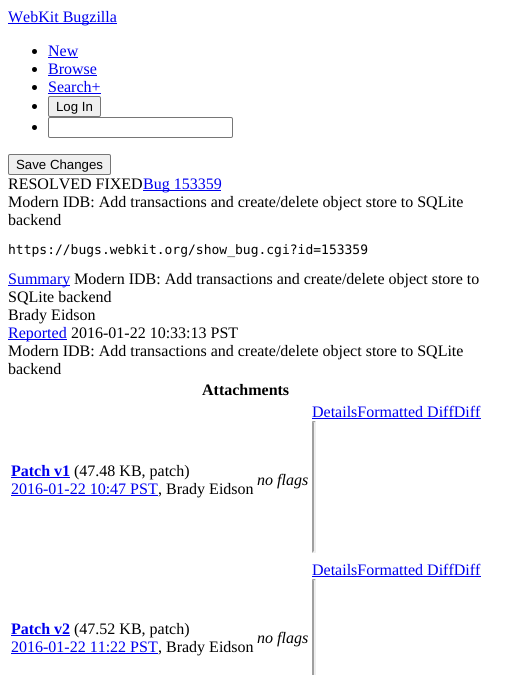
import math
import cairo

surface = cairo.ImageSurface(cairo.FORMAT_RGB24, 522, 675)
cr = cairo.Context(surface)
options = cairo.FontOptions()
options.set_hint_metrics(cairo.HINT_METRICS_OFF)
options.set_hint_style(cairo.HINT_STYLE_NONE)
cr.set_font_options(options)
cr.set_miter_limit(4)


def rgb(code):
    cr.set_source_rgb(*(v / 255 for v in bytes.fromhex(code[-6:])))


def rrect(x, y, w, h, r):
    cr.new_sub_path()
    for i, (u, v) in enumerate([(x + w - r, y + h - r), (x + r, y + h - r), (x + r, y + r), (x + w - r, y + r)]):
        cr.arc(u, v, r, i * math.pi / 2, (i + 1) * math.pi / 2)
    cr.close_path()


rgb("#ffffff")
cr.paint()
rgb("#0000ee")
cr.rectangle(8, 23, 109, 1)
cr.fill()
rgb("#000000")
cr.arc(34.5, 51.5, 2.5, 0, 2 * math.pi)
cr.fill()
rgb("#0000ee")
cr.rectangle(48, 57, 30, 1)
cr.fill()
rgb("#000000")
cr.arc(34.5, 69.5, 2.5, 0, 2 * math.pi)
cr.fill()
rgb("#0000ee")
cr.rectangle(48, 75, 49, 1)
cr.fill()
rgb("#000000")
cr.arc(34.5, 87.5, 2.5, 0, 2 * math.pi)
cr.fill()
rgb("#0000ee")
cr.rectangle(48, 93, 53, 1)
cr.fill()
rgb("#000000")
cr.arc(34.5, 106.5, 2.5, 0, 2 * math.pi)
cr.fill()
rgb("#efefef")
rrect(48.5, 96.5, 52, 20, 1.5)
cr.fill_preserve()
rgb("#767676")
cr.set_line_width(1)
cr.stroke()
rgb("#000000")
cr.arc(34.5, 127.5, 2.5, 0, 2 * math.pi)
cr.fill()
rrect(48.5, 117.5, 184, 20, 1.5)
rgb("#767676")
cr.stroke()
rgb("#efefef")
rrect(8.5, 154.5, 102, 20, 1.5)
cr.fill_preserve()
rgb("#767676")
cr.stroke()
for x, y, w, h, color in [
    (143, 190, 78, 1, "#0000ee"),
    (8, 285, 62, 1, "#0000ee"),
    (8, 339, 59, 1, "#0000ee"),
    (312, 418, 169, 1, "#0000ee"),
]:
    rgb(color)
    cr.rectangle(x, y, w, h)
    cr.fill()
rgb("#9f9f9f")
cr.new_path()
cr.move_to(312, 421)
cr.line_to(316, 421)
cr.line_to(314, 423)
cr.close_path()
cr.fill()
rgb("#eeeeee")
cr.new_path()
cr.move_to(316, 421)
cr.line_to(316, 553)
cr.line_to(314, 551)
cr.line_to(314, 423)
cr.close_path()
cr.fill()
cr.new_path()
cr.move_to(316, 553)
cr.line_to(312, 553)
cr.line_to(314, 551)
cr.close_path()
cr.fill()
rgb("#9f9f9f")
cr.new_path()
cr.move_to(312, 553)
cr.line_to(312, 421)
cr.line_to(314, 423)
cr.line_to(314, 551)
cr.close_path()
cr.fill()
for x, y, w, h, color in [
    (11, 477, 59, 1, "#0000ee"),
    (11, 495, 147, 1, "#0000ee"),
    (312, 576, 169, 1, "#0000ee"),
]:
    rgb(color)
    cr.rectangle(x, y, w, h)
    cr.fill()
rgb("#9f9f9f")
cr.new_path()
cr.move_to(312, 579)
cr.line_to(316, 579)
cr.line_to(314, 581)
cr.close_path()
cr.fill()
cr.new_path()
cr.move_to(312, 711)
cr.line_to(312, 579)
cr.line_to(314, 581)
cr.line_to(314, 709)
cr.close_path()
cr.fill()
rgb("#eeeeee")
cr.new_path()
cr.move_to(316, 579)
cr.line_to(316, 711)
cr.line_to(314, 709)
cr.line_to(314, 581)
cr.close_path()
cr.fill()
rgb("#0000ee")
cr.rectangle(11, 635, 59, 1)
cr.fill()
cr.rectangle(11, 653, 147, 1)
cr.fill()
cr.select_font_face("Liberation Serif")
cr.set_font_size(16)
for x, y, s in [
    (8, 22, "WebKit Bugzilla"),
    (48, 56, "New"),
    (48, 74, "Browse"),
    (48, 92, "Search+"),
]:
    cr.move_to(x, y)
    cr.show_text(s)
cr.select_font_face("Liberation Sans")
cr.set_font_size(13.25)
rgb("#000000")
cr.move_to(56, 111)
cr.show_text("Log In")
cr.move_to(16, 169)
cr.show_text("Save Changes")
cr.select_font_face("Liberation Serif")
cr.set_font_size(16)
cr.move_to(8, 189)
cr.show_text("RESOLVED FIXED")
rgb("#0000ee")
cr.move_to(143, 189)
cr.show_text("Bug 153359")
rgb("#000000")
cr.move_to(8, 207)
cr.show_text("Modern IDB: Add transactions and create/delete object store to SQLite")
cr.move_to(8, 225)
cr.show_text("backend")
cr.select_font_face("DejaVu Sans Mono")
cr.set_font_size(13)
cr.move_to(8, 254)
cr.show_text("https://bugs.webkit.org/show_bug.cgi?id=153359")
cr.select_font_face("Liberation Serif")
cr.set_font_size(16)
rgb("#0000ee")
cr.move_to(8, 284)
cr.show_text("Summary")
rgb("#000000")
for x, y, s in [
    (74, 284, "Modern IDB: Add transactions and create/delete object store to"),
    (8, 302, "SQLite backend"),
    (8, 320, "Brady Eidson"),
]:
    cr.move_to(x, y)
    cr.show_text(s)
rgb("#0000ee")
cr.move_to(8, 338)
cr.show_text("Reported")
rgb("#000000")
for x, y, s in [
    (71, 338, "2016-01-22 10:33:13 PST"),
    (8, 356, "Modern IDB: Add transactions and create/delete object store to SQLite"),
    (8, 374, "backend"),
]:
    cr.move_to(x, y)
    cr.show_text(s)
cr.select_font_face("Liberation Serif", cairo.FONT_SLANT_NORMAL, cairo.FONT_WEIGHT_BOLD)
cr.move_to(202, 395)
cr.show_text("Attachments")
cr.select_font_face("Liberation Serif")
rgb("#0000ee")
cr.move_to(312, 417)
cr.show_text("DetailsFormatted DiffDiff")
cr.select_font_face("Liberation Serif", cairo.FONT_SLANT_NORMAL, cairo.FONT_WEIGHT_BOLD)
cr.move_to(11, 476)
cr.show_text("Patch v1")
cr.select_font_face("Liberation Serif")
rgb("#000000")
cr.move_to(74, 476)
cr.show_text("(47.48 KB, patch)")
rgb("#0000ee")
cr.move_to(11, 494)
cr.show_text("2016-01-22 10:47 PST")
rgb("#000000")
cr.move_to(158, 494)
cr.show_text(", Brady Eidson")
cr.select_font_face("Liberation Serif", cairo.FONT_SLANT_ITALIC)
cr.move_to(257, 485)
cr.show_text("no flags")
cr.select_font_face("Liberation Serif")
rgb("#0000ee")
cr.move_to(312, 575)
cr.show_text("DetailsFormatted DiffDiff")
cr.select_font_face("Liberation Serif", cairo.FONT_SLANT_NORMAL, cairo.FONT_WEIGHT_BOLD)
cr.move_to(11, 634)
cr.show_text("Patch v2")
cr.select_font_face("Liberation Serif")
rgb("#000000")
cr.move_to(74, 634)
cr.show_text("(47.52 KB, patch)")
rgb("#0000ee")
cr.move_to(11, 652)
cr.show_text("2016-01-22 11:22 PST")
rgb("#000000")
cr.move_to(158, 652)
cr.show_text(", Brady Eidson")
cr.select_font_face("Liberation Serif", cairo.FONT_SLANT_ITALIC)
cr.move_to(257, 643)
cr.show_text("no flags")
surface.write_to_png("page.png")
